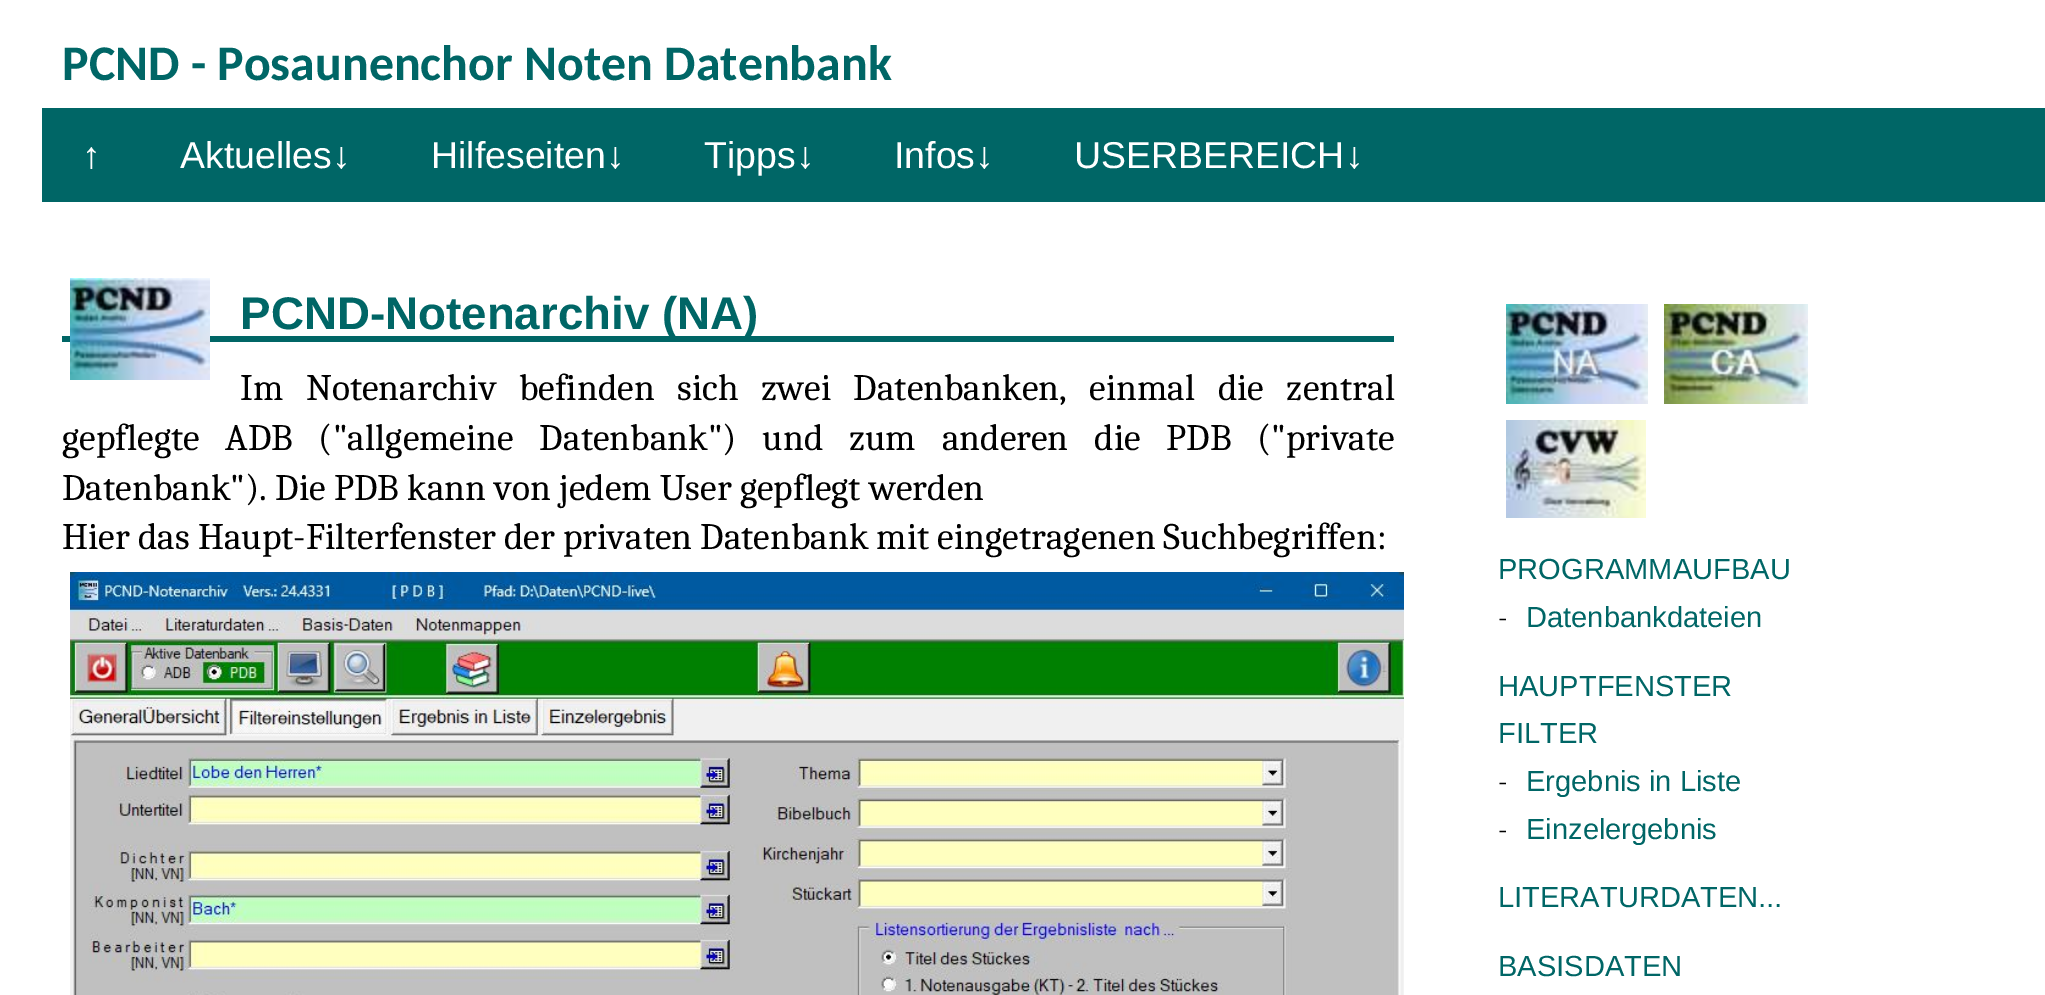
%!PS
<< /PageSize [2045 995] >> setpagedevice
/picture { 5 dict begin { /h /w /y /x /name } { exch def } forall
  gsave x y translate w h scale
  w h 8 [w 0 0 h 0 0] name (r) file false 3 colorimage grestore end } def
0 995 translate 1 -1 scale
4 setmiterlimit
1 setgray
0 0 2045 995 rectfill
/Carlito-Bold [49.9 0 0 -49.9 0 0] selectfont
0 0.4 0.4 setrgbcolor
62 80 moveto (PCND - Posaunenchor Noten Datenbank) show
42 108 2003 94 rectfill
/LiberationSans-Regular [37.45 0 0 -37.45 0 0] selectfont
1 setgray
82 168 moveto (↑) show
180 168 moveto (Aktuelles↓) show
431 168 moveto (Hilfeseiten↓) show
704 168 moveto (Tipps↓) show
894 168 moveto (Infos↓) show
1074 168 moveto (USERBEREICH↓) show
0 0.4 0.4 setrgbcolor
62 336 1332 6 rectfill
(img1.rgb) 70 278 140 102 picture
/LiberationSans-Bold [45.75 0 0 -45.75 0 0] selectfont
240 329 moveto (PCND-Notenarchiv \(NA\)) show
/Caladea-Regular [37.45 0 0 -37.45 0 0] selectfont
0 setgray
240 400 moveto 14.25 0 32 (Im Notenarchiv befinden sich zwei Datenbanken, einmal die zentral) widthshow
62 450 moveto 17.5 0 32 (gepflegte ADB \("allgemeine Datenbank"\) und zum anderen die PDB \("private) widthshow
62 500 moveto (Datenbank"\). Die PDB kann von jedem User gepflegt werden) show
62 549 moveto -0.25 0 32 (Hier das Haupt-Filterfenster der privaten Datenbank mit eingetragenen Suchbegriffen:) widthshow
(img2.rgb) 70 572 1334 423 picture
(img3.rgb) 1506 304 142 100 picture
(img4.rgb) 1664 304 144 100 picture
(img5.rgb) 1506 420 140 98 picture
/LiberationSans-Regular [29.1 0 0 -29.1 0 0] selectfont
0 0.4 0.4 setrgbcolor
1498 579 moveto (PROGRAMMAUFBAU) show
/Caladea-Regular [29.1 0 0 -29.1 0 0] selectfont
0 setgray
1498 627 moveto (-) show
/LiberationSans-Regular [29.1 0 0 -29.1 0 0] selectfont
0 0.4 0.4 setrgbcolor
1526 627 moveto (Datenbankdateien) show
1498 696 moveto (HAUPTFENSTER) show
1498 743 moveto (FILTER) show
/Caladea-Regular [29.1 0 0 -29.1 0 0] selectfont
0 setgray
1498 791 moveto (-) show
/LiberationSans-Regular [29.1 0 0 -29.1 0 0] selectfont
0 0.4 0.4 setrgbcolor
1526 791 moveto (Ergebnis in Liste) show
/Caladea-Regular [29.1 0 0 -29.1 0 0] selectfont
0 setgray
1498 839 moveto (-) show
/LiberationSans-Regular [29.1 0 0 -29.1 0 0] selectfont
0 0.4 0.4 setrgbcolor
1526 839 moveto (Einzelergebnis) show
1498 907 moveto (LITERATURDATEN...) show
1498 976 moveto (BASISDATEN) show
showpage
